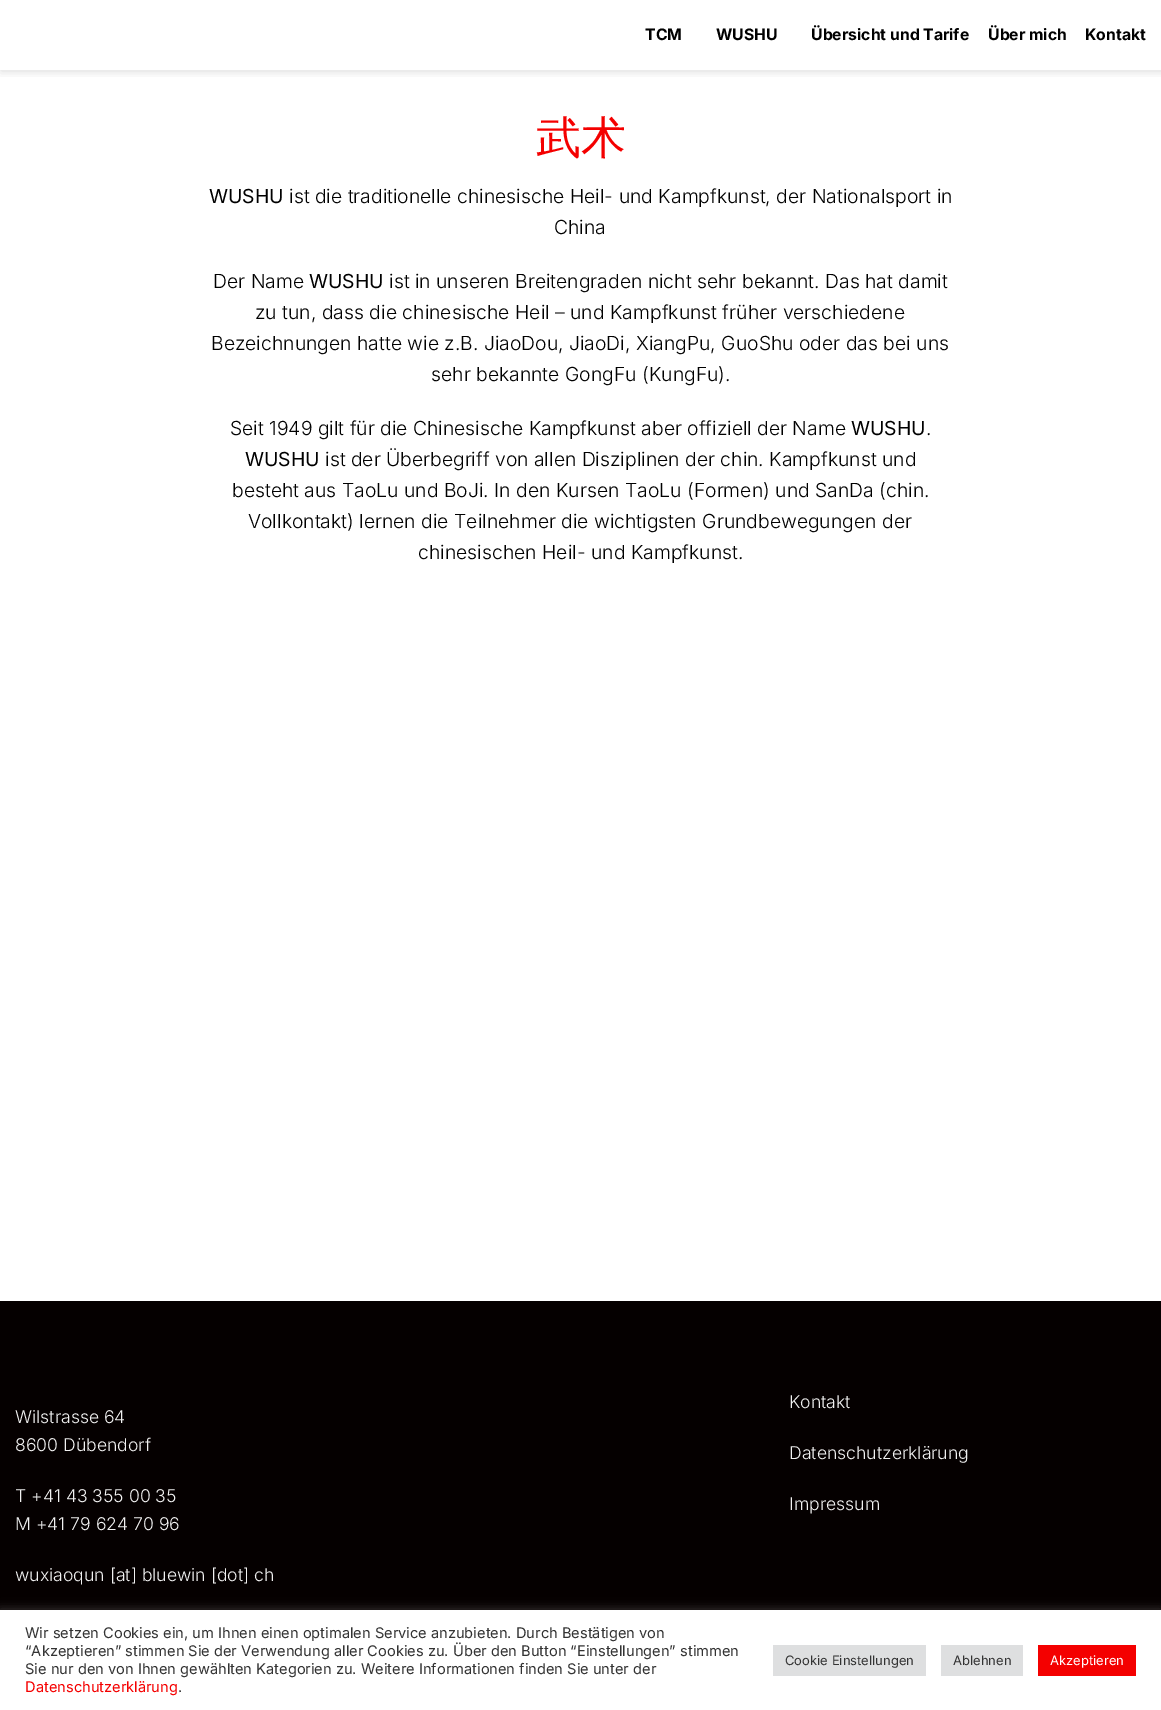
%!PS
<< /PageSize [1161 1710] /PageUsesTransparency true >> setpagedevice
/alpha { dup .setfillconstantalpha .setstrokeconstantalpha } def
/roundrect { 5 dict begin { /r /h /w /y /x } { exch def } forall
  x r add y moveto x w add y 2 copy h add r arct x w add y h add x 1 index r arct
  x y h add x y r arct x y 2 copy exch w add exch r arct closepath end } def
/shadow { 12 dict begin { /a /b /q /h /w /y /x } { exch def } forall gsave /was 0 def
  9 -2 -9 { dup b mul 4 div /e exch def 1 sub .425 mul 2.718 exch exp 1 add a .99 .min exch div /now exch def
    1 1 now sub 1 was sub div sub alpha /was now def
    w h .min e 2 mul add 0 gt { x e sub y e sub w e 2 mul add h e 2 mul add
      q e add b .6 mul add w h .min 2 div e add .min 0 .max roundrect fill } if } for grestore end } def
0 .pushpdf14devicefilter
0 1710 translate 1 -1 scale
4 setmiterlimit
1 setgray
0 0 1161 1710 rectfill
gsave
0 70 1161 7 rectclip
0 setgray
1 1 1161 70 0 5 0.15 shadow
grestore
/Inter-Bold [15.75 0 0 -15.75 0 0] selectfont
0 setgray
645 40 moveto (TCM) show
716 40 moveto (WUSHU) show
811 40 moveto (Übersicht und Tarife) show
988 40 moveto (Über mich) show
1085 40 moveto (Kontakt) show
/WenQuanYiZenHei-Medium [45 0 0 -45 0 0] selectfont
0.957 0 0 setrgbcolor
536 153 moveto (武术) show
/Inter-Regular [19.35 0 0 -19.35 0 0] selectfont
0 setgray
209 203 moveto (WUSHU) show
/Inter-Light [19.35 0 0 -19.35 0 0] selectfont
289 203 moveto (ist die traditionelle chinesische Heil- und Kampfkunst, der Nationalsport in) show
554 234 moveto (China) show
213 288 moveto (Der Name) show
/Inter-Regular [19.35 0 0 -19.35 0 0] selectfont
309 288 moveto (WUSHU) show
/Inter-Light [19.35 0 0 -19.35 0 0] selectfont
389 288 moveto (ist in unseren Breitengraden nicht sehr bekannt. Das hat damit) show
255 319 moveto (zu tun, dass die chinesische Heil – und Kampfkunst früher verschiedene) show
211 350 moveto (Bezeichnungen hatte wie z.B. JiaoDou, JiaoDi, XiangPu, GuoShu oder das bei uns) show
431 381 moveto (sehr bekannte GongFu \(KungFu\).) show
230 435 moveto (Seit 1949 gilt für die Chinesische Kampfkunst aber offiziell der Name) show
/Inter-Regular [19.35 0 0 -19.35 0 0] selectfont
851 435 moveto (WUSHU) show
/Inter-Light [19.35 0 0 -19.35 0 0] selectfont
926 435 moveto (.) show
/Inter-Regular [19.35 0 0 -19.35 0 0] selectfont
245 466 moveto (WUSHU) show
/Inter-Light [19.35 0 0 -19.35 0 0] selectfont
325 466 moveto (ist der Überbegriff von allen Disziplinen der chin. Kampfkunst und) show
232 497 moveto (besteht aus TaoLu und BoJi. In den Kursen TaoLu \(Formen\) und SanDa \(chin.) show
248 528 moveto (Vollkontakt\) lernen die Teilnehmer die wichtigsten Grundbewegungen der) show
418 559 moveto (chinesischen Heil- und Kampfkunst.) show
0.02 0 0 setrgbcolor
0 1301 1161 309 rectfill
/Inter-Light [17.6 0 0 -17.6 0 0] selectfont
0.945 setgray
15 1423 moveto (Wilstrasse 64) show
15 1451 moveto (8600 Dübendorf) show
15 1502 moveto (T +41 43 355 00 35) show
15 1530 moveto (M +41 79 624 70 96) show
15 1581 moveto (wuxiaoqun [at] bluewin [dot] ch) show
789 1408 moveto (Kontakt) show
789 1459 moveto (Datenschutzerklärung) show
789 1510 moveto (Impressum) show
0.675 0.671 0.671 setrgbcolor
0 1609 1161 100 0 5 0.3 shadow
1 setgray
0 1610 1161 100 rectfill
/Inter-Regular [14.65 0 0 -14.65 0 0] selectfont
0.2 setgray
25 1638 moveto (Wir setzen Cookies ein, um Ihnen einen optimalen Service anzubieten. Durch Bestätigen von) show
25 1656 moveto (“Akzeptieren” stimmen Sie der Verwendung aller Cookies zu. Über den Button “Einstellungen” stimmen) show
25 1674 moveto (Sie nur den von Ihnen gewählten Kategorien zu. Weitere Informationen finden Sie unter der) show
0.957 0 0 setrgbcolor
25 1692 moveto (Datenschutzerklärung) show
0.2 setgray
178 1692 moveto (.) show
0.871 0.875 0.878 setrgbcolor
773 1645 153 31 rectfill
/Inter-Regular [13 0 0 -13 0 0] selectfont
0.2 setgray
785 1665 moveto (Cookie Einstellungen) show
0.871 0.875 0.878 setrgbcolor
941 1645 82 31 rectfill
0.2 setgray
953 1665 moveto (Ablehnen) show
0.957 0 0 setrgbcolor
1038 1645 98 31 rectfill
1 setgray
1050 1665 moveto (Akzeptieren) show
.poppdf14devicefilter showpage
